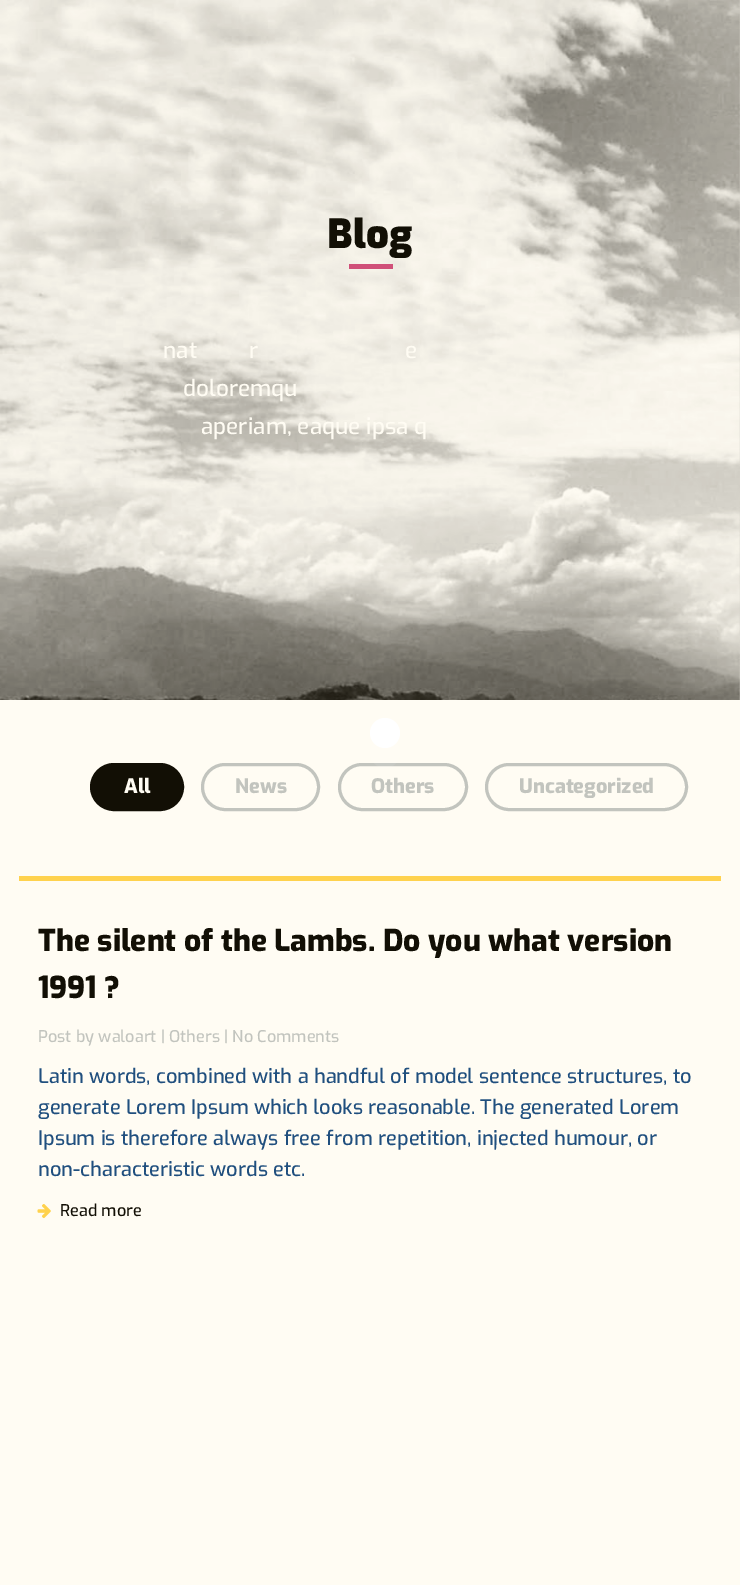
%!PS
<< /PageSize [740 1585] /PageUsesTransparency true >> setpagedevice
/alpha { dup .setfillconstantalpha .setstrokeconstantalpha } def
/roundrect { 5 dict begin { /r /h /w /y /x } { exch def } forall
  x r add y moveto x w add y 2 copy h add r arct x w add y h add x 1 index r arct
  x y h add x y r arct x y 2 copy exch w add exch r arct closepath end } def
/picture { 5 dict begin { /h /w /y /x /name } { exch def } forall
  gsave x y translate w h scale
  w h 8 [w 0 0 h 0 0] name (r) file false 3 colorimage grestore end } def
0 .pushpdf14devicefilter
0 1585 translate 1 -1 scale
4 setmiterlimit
1 0.988 0.953 setrgbcolor
0 0 740 1585 rectfill
(img1.rgb) 0 0 740 700 picture
/Exo-Black [40 0 0 -40 0 0] selectfont
0.071 0.059 0.02 setrgbcolor
327 248 moveto (Blog) show
0.816 0.314 0.475 setrgbcolor
349 264 44 5 rectfill
/Exo-Medium [22.5 0 0 -22.5 0 0] selectfont
1 0.988 0.953 setrgbcolor
163 358 moveto (nat) show
249 358 moveto (r) show
405 358 moveto (e) show
183 396 moveto (doloremqu) show
201 434 moveto (aperiam, eaque ipsa q) show
1 setgray
newpath 385 733 15 0 360 arc closepath fill
0.761 0.769 0.745 setrgbcolor
3 setlinewidth
339.5 764.5 127 45 22.5 roundrect stroke
0.07 alpha
1 setgray
newpath 385 753 15 0 360 arc closepath fill
1 alpha
0.071 0.059 0.02 setrgbcolor
91.5 764.5 91 45 22.5 roundrect gsave fill grestore
stroke
/Exo-ExtraBold [20 0 0 -20 0 0] selectfont
1 0.988 0.953 setrgbcolor
124 793 moveto (All) show
0.761 0.769 0.745 setrgbcolor
202.5 764.5 116 45 22.5 roundrect stroke
235 793 moveto (News) show
371 793 moveto (Others) show
486.5 764.5 200 45 22.5 roundrect stroke
519 793 moveto (Uncategorized) show
1 0.824 0.302 setrgbcolor
19 876 702 5 rectfill
/Exo-ExtraBold [30 0 0 -30 0 0] selectfont
0.071 0.059 0.02 setrgbcolor
38 951 moveto (The silent of the Lambs. Do you what version) show
38 998 moveto (1991 ?) show
/Exo-Medium [16.25 0 0 -16.25 0 0] selectfont
0.761 0.769 0.745 setrgbcolor
38 1042 moveto (Post by waloart | Others | No Comments) show
/Exo-Medium [20 0 0 -20 0 0] selectfont
0.125 0.31 0.494 setrgbcolor
38 1083 moveto (Latin words, combined with a handful of model sentence structures, to) show
38 1114 moveto (generate Lorem Ipsum which looks reasonable. The generated Lorem) show
38 1145 moveto (Ipsum is therefore always free from repetition, injected humour, or) show
38 1176 moveto (non-characteristic words etc.) show
(img2.rgb) 37 1204 14 15 picture
/Exo-Medium [16.25 0 0 -16.25 0 0] selectfont
0.071 0.059 0.02 setrgbcolor
60 1216 moveto (Read more) show
.poppdf14devicefilter showpage
